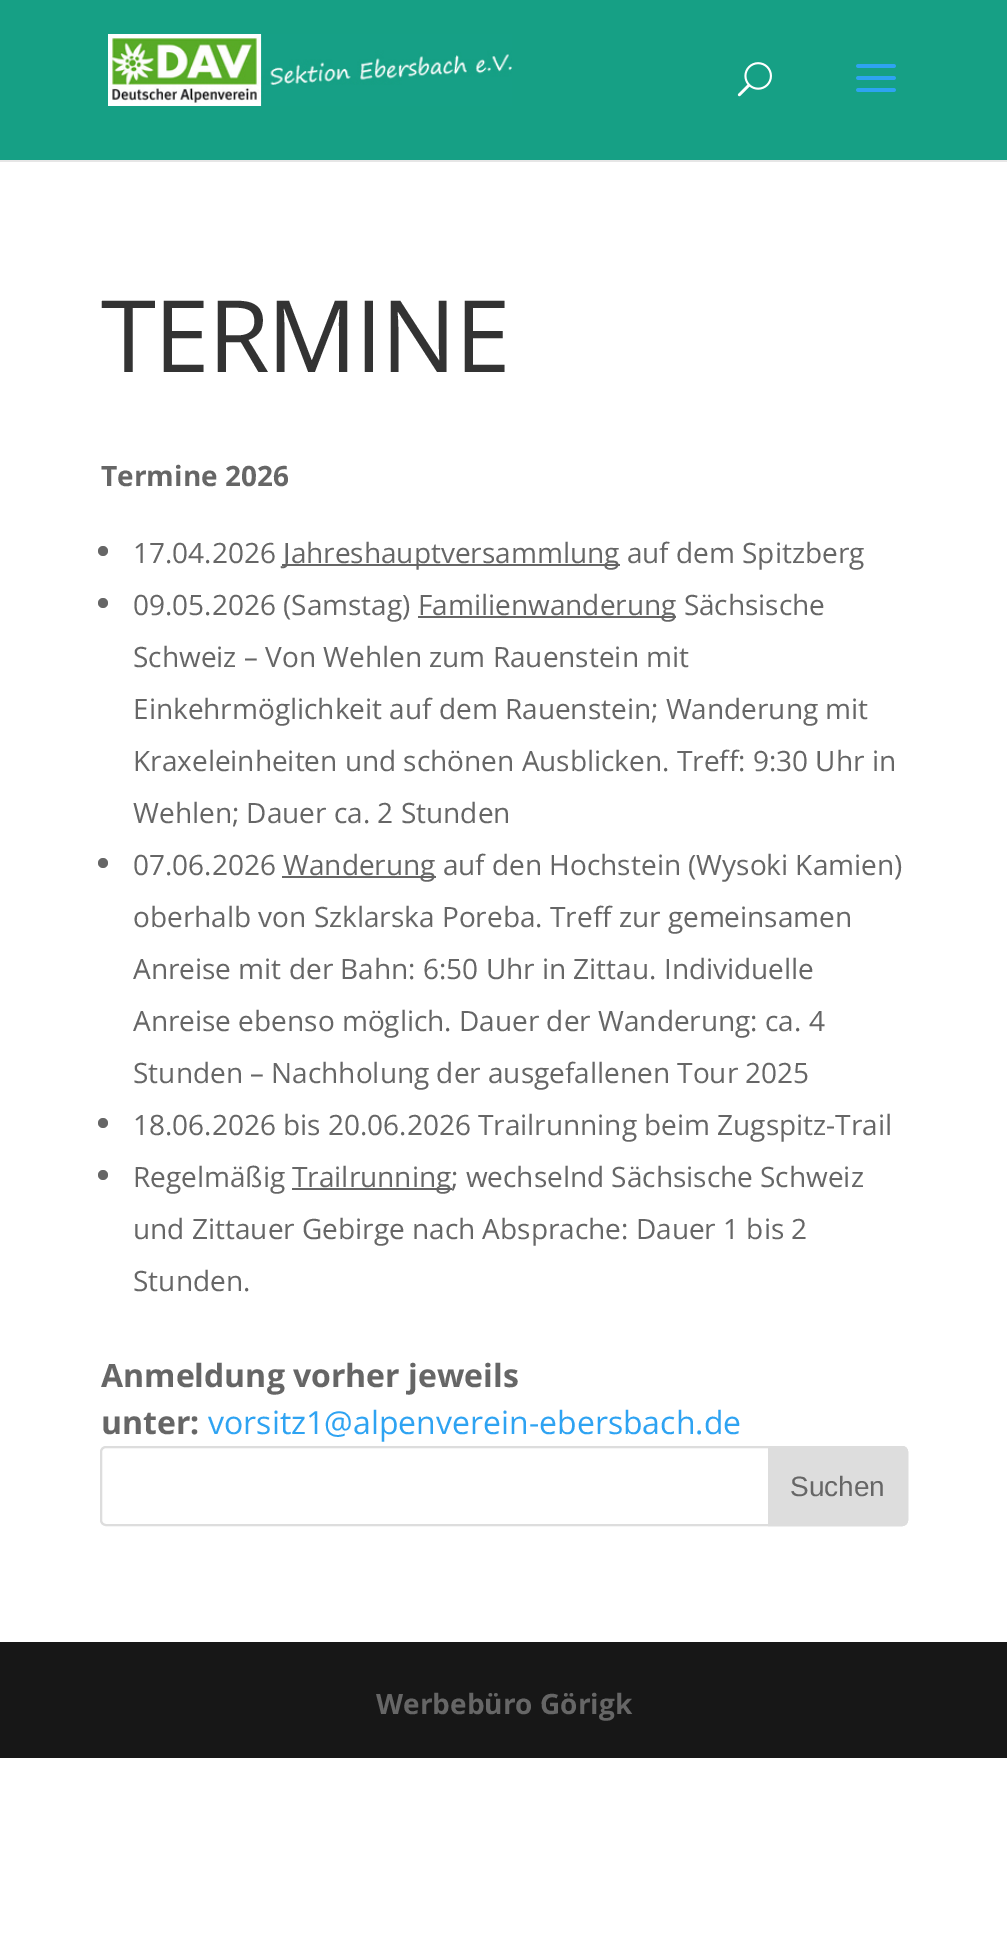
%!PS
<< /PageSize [1007 1945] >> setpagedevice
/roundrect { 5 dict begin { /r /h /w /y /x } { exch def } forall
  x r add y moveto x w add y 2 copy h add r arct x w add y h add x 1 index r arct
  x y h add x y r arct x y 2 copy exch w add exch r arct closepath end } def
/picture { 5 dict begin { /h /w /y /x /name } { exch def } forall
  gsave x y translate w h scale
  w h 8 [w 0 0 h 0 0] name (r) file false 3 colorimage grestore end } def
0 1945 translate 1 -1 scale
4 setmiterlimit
1 setgray
0 0 1007 1945 rectfill
0.902 setgray
0 160 1007 2 rectfill
0.086 0.627 0.522 setrgbcolor
0 0 1007 160 rectfill
(img1.rgb) 108 34 404 72 picture
(img2.rgb) 737 62 35 35 picture
(img3.rgb) 856 64 40 28 picture
/OpenSans-Regular [100 0 0 -100 0 0] selectfont
0.2 setgray
101 372 moveto -2 0 (TERMINE) ashow
/OpenSans-Bold [28 0 0 -28 0 0] selectfont
0.4 setgray
101 486 moveto (Termine 2026) show
newpath 103 551 5 0 360 arc closepath fill
/OpenSans-Regular [28 0 0 -28 0 0] selectfont
133 563 moveto (17.04.2026) show
282 564 338 2 rectfill
283 563 moveto (Jahreshauptversammlung auf dem Spitzberg) show
newpath 103 603 5 0 360 arc closepath fill
133 615 moveto (09.05.2026 \(Samstag\)) show
418 616 258 2 rectfill
418 615 moveto (Familienwanderung Sächsische) show
133 667 moveto (Schweiz – Von Wehlen zum Rauenstein mit) show
133 719 moveto (Einkehrmöglichkeit auf dem Rauenstein; Wanderung mit) show
133 771 moveto (Kraxeleinheiten und schönen Ausblicken. Treff: 9:30 Uhr in) show
133 823 moveto (Wehlen; Dauer ca. 2 Stunden) show
newpath 103 863 5 0 360 arc closepath fill
133 875 moveto (07.06.2026) show
282 876 154 2 rectfill
283 875 moveto (Wanderung auf den Hochstein \(Wysoki Kamien\)) show
133 927 moveto (oberhalb von Szklarska Poreba. Treff zur gemeinsamen) show
133 979 moveto (Anreise mit der Bahn: 6:50 Uhr in Zittau. Individuelle) show
133 1031 moveto (Anreise ebenso möglich. Dauer der Wanderung: ca. 4) show
133 1083 moveto (Stunden – Nachholung der ausgefallenen Tour 2025) show
newpath 103 1123 5 0 360 arc closepath fill
133 1135 moveto (18.06.2026 bis 20.06.2026 Trailrunning beim Zugspitz-Trail) show
newpath 103 1175 5 0 360 arc closepath fill
133 1187 moveto (Regelmäßig) show
292 1188 160 2 rectfill
292 1187 moveto (Trailrunning; wechselnd Sächsische Schweiz) show
133 1239 moveto (und Zittauer Gebirge nach Absprache: Dauer 1 bis 2) show
133 1291 moveto (Stunden.) show
/OpenSans-Bold [32 0 0 -32 0 0] selectfont
101 1387 moveto (Anmeldung vorher jeweils) show
101 1434 moveto (unter:) show
/OpenSans-Regular [32 0 0 -32 0 0] selectfont
0.18 0.639 0.949 setrgbcolor
208 1434 moveto (vorsitz1@alpenverein-ebersbach.de) show
0.867 setgray
2 setlinewidth
101 1447 806 78 5 roundrect stroke
newpath 769 1447 moveto 902 1447 lineto 905 1447 907 1449 907 1452 curveto 907 1520 lineto 907 1523 905 1525 902 1525 curveto 769 1525 lineto closepath gsave fill grestore
stroke
/LiberationSans-Regular [28 0 0 -28 0 0] selectfont
0.4 setgray
790 1496 moveto (Suchen) show
0.09 setgray
0 1642 1007 116 rectfill
/OpenSans-Bold [28 0 0 -28 0 0] selectfont
0.4 setgray
376 1714 moveto (Werbebüro Görigk) show
showpage
